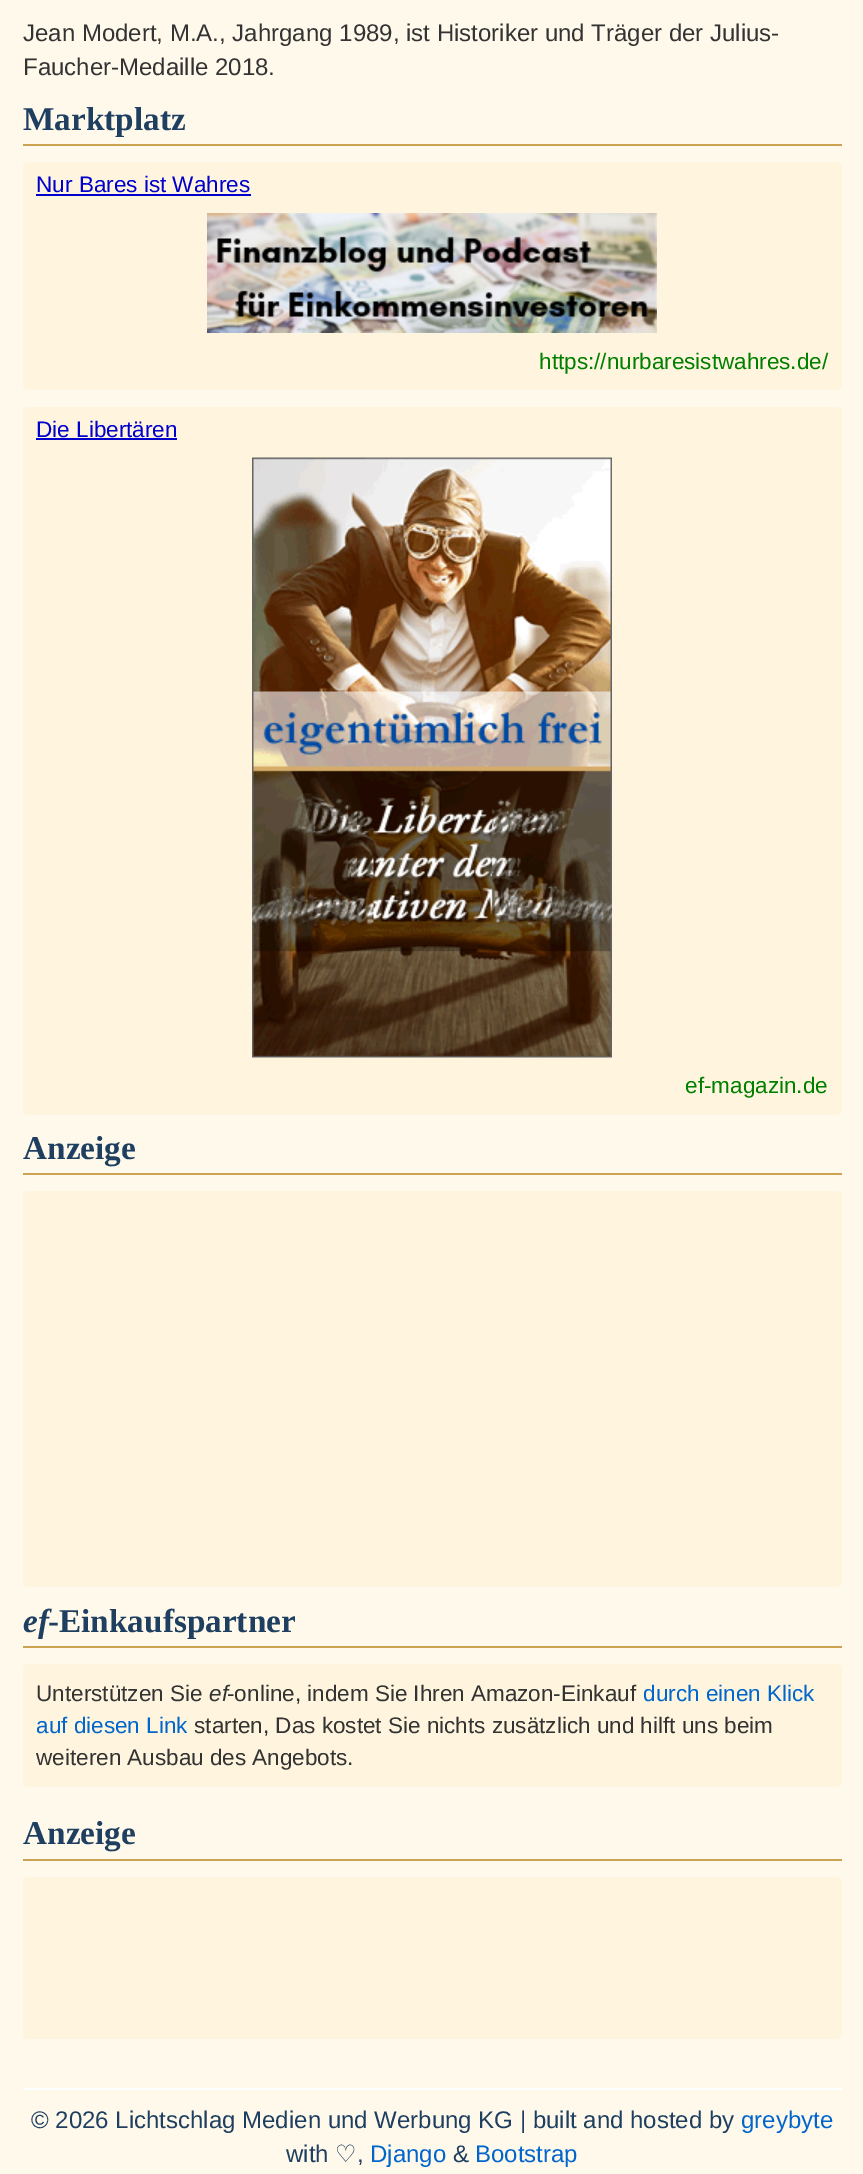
%!PS
<< /PageSize [863 2174] >> setpagedevice
/roundrect { 5 dict begin { /r /h /w /y /x } { exch def } forall
  x r add y moveto x w add y 2 copy h add r arct x w add y h add x 1 index r arct
  x y h add x y r arct x y 2 copy exch w add exch r arct closepath end } def
/picture { 5 dict begin { /h /w /y /x /name } { exch def } forall
  gsave x y translate w h scale
  w h 8 [w 0 0 h 0 0] name (r) file false 3 colorimage grestore end } def
0 2174 translate 1 -1 scale
4 setmiterlimit
1 0.976 0.925 setrgbcolor
0 0 863 2174 rectfill
/LiberationSans-Regular [24 0 0 -24 0 0] selectfont
0.2 setgray
23 41 moveto (Jean Modert, M.A., Jahrgang 1989, ist Historiker und Träger der Julius-) show
23 75 moveto (Faucher-Medaille 2018.) show
0.8 0.639 0.322 setrgbcolor
23 144 819 2 rectfill
/LiberationSerif-Bold [33.25 0 0 -33.25 0 0] selectfont
0.118 0.247 0.376 setrgbcolor
23 130 moveto (Marktplatz) show
1 0.957 0.867 setrgbcolor
23 162 819 228 5 roundrect fill
/LiberationSans-Regular [22.5 0 0 -22.5 0 0] selectfont
0 0 0.8 setrgbcolor
36 192 moveto (Nur Bares ist Wahres) show
36 194 215 2 rectfill
(img1.rgb) 207 213 450 120 picture
0 0.502 0 setrgbcolor
539 369 moveto (https://nurbaresistwahres.de/) show
1 0.957 0.867 setrgbcolor
23 407 819 708 5 roundrect fill
0 0 0.8 setrgbcolor
36 437 moveto (Die Libertären) show
36 438 141 2 rectfill
(img2.rgb) 252 457 360 601 picture
0 0.502 0 setrgbcolor
685 1093 moveto (ef-magazin.de) show
0.8 0.639 0.322 setrgbcolor
23 1173 819 2 rectfill
/LiberationSerif-Bold [33.25 0 0 -33.25 0 0] selectfont
0.118 0.247 0.376 setrgbcolor
23 1159 moveto (Anzeige) show
1 0.957 0.867 setrgbcolor
23 1191 819 396 5 roundrect fill
0.8 0.639 0.322 setrgbcolor
23 1646 819 2 rectfill
/LiberationSerif-BoldItalic [33.25 0 0 -33.25 0 0] selectfont
0.118 0.247 0.376 setrgbcolor
23 1632 moveto (ef) show
/LiberationSerif-Bold [33.25 0 0 -33.25 0 0] selectfont
48 1632 moveto (-Einkaufspartner) show
1 0.957 0.867 setrgbcolor
23 1664 819 123 5 roundrect fill
/LiberationSans-Regular [22.5 0 0 -22.5 0 0] selectfont
0.2 setgray
36 1701 moveto (Unterstützen Sie) show
/LiberationSans-Italic [22.5 0 0 -22.5 0 0] selectfont
209 1701 moveto (ef) show
/LiberationSans-Regular [22.5 0 0 -22.5 0 0] selectfont
227 1701 moveto (-online, indem Sie Ihren Amazon-Einkauf) show
0 0.4 0.8 setrgbcolor
643 1701 moveto (durch einen Klick) show
36 1733 moveto (auf diesen Link) show
0.2 setgray
194 1733 moveto (starten, Das kostet Sie nichts zusätzlich und hilft uns beim) show
36 1765 moveto (weiteren Ausbau des Angebots.) show
0.8 0.639 0.322 setrgbcolor
23 1859 819 2 rectfill
/LiberationSerif-Bold [33.25 0 0 -33.25 0 0] selectfont
0.118 0.247 0.376 setrgbcolor
23 1844 moveto (Anzeige) show
1 0.957 0.867 setrgbcolor
23 1877 819 162 5 roundrect fill
0.992 0.996 1 setrgbcolor
23 2088 819 2 rectfill
/LiberationSans-Regular [24 0 0 -24 0 0] selectfont
0.118 0.247 0.376 setrgbcolor
31 2128 moveto (© 2026 Lichtschlag Medien und Werbung KG | built and hosted by) show
0 0.4 0.8 setrgbcolor
741 2128 moveto (greybyte) show
0.118 0.247 0.376 setrgbcolor
286 2162 moveto (with) show
/DejaVuSans-Regular [24 0 0 -24 0 0] selectfont
335 2162 moveto (♡) show
/LiberationSans-Regular [24 0 0 -24 0 0] selectfont
357 2162 moveto (,) show
0 0.4 0.8 setrgbcolor
370 2162 moveto (Django) show
0.118 0.247 0.376 setrgbcolor
453 2162 moveto (&) show
0 0.4 0.8 setrgbcolor
475 2162 moveto (Bootstrap) show
showpage
